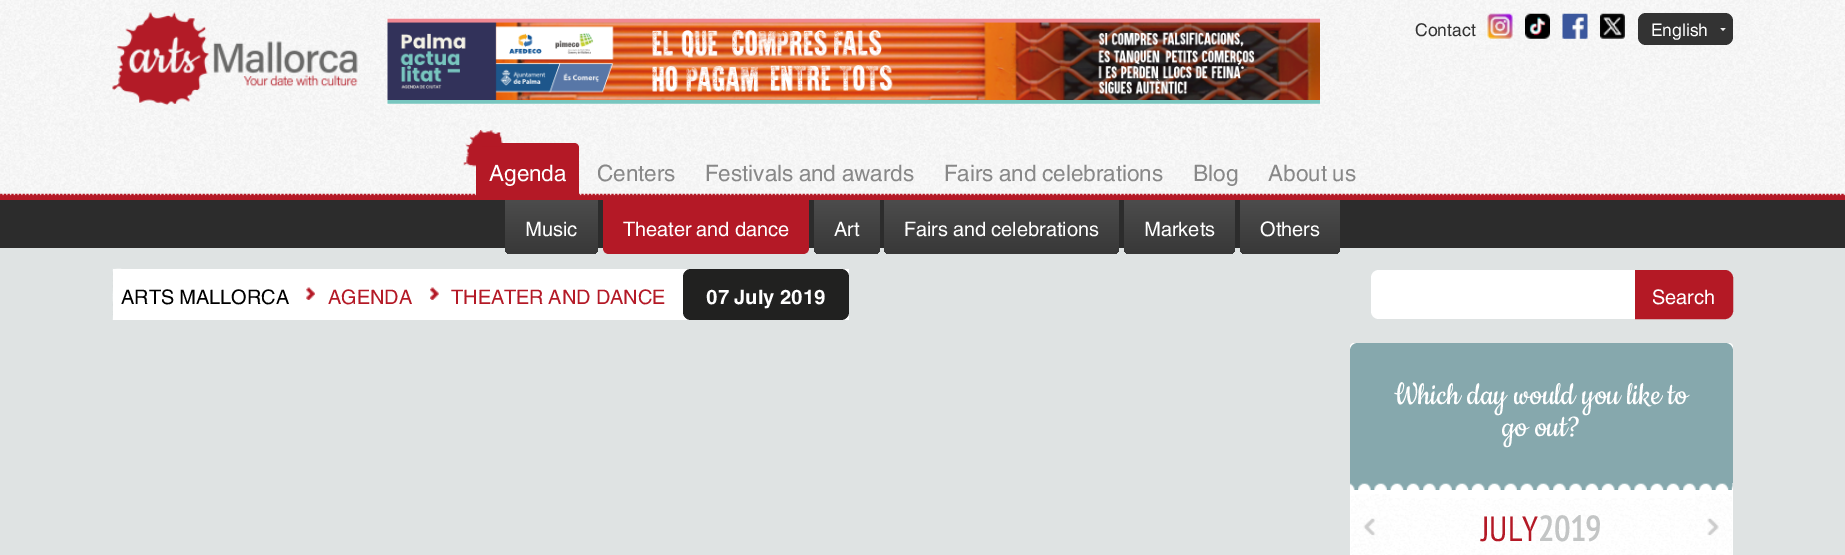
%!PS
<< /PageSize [1845 555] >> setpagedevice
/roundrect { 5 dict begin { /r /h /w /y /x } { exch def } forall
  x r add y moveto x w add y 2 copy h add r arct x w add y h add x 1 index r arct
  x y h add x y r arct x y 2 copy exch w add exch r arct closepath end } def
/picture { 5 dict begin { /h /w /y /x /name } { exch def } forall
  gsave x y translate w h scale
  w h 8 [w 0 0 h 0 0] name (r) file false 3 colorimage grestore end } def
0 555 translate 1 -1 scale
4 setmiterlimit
0.173 setgray
0 0 1845 555 rectfill
(img1.rgb) 0 0 1845 196 picture
(img2.rgb) 112 12 246 93 picture
(img3.rgb) 387 18 933 86 picture
/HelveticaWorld-Regular [17.5 0 0 -17.5 0 0] selectfont
0.2 setgray
1415 36 moveto (Contact) show
(img4.rgb) 1487 13 26 26 picture
(img5.rgb) 1525 13 25 26 picture
(img6.rgb) 1562 13 26 26 picture
(img7.rgb) 1600 13 25 26 picture
1638 13 95 32 8 roundrect fill
gsave
1720 28 6 4 rectclip
0.933 setgray
newpath 1723 31 moveto 1720 27.5 lineto 1726 27.5 lineto closepath fill
grestore
1 setgray
1651 36 moveto (English) show
(img8.rgb) 0 193 1845 7 picture
0.706 0.098 0.149 setrgbcolor
newpath 481 143 moveto 574 143 lineto 577 143 579 145 579 148 curveto 579 200 lineto 476 200 lineto 476 148 lineto 476 145 478 143 481 143 curveto closepath fill
/HelveticaWorld-Regular [22.5 0 0 -22.5 0 0] selectfont
1 setgray
489 181 moveto (Agenda) show
(img9.rgb) 463 130 40 37 picture
0.533 setgray
597 181 moveto (Centers) show
705 181 moveto (Festivals and awards) show
944 181 moveto (Fairs and celebrations) show
1193 181 moveto (Blog) show
1268 181 moveto (About us) show
0.875 0.89 0.89 setrgbcolor
0 248 1845 307 rectfill
gsave newpath 505 200 moveto 598 200 lineto 598 248 lineto 598 251.5 595.5 254 592 254 curveto 511 254 lineto 507.5 254 505 251.5 505 248 curveto closepath clip newpath
<< /ShadingType 2 /ColorSpace /DeviceRGB /Coords [551 200 551 254] /Extend [true true] /Function << /FunctionType 2 /Domain [0 1] /C0 [0.298 0.298 0.298] /C1 [0.22 0.22 0.22] /N 1 >> >> shfill grestore
/HelveticaWorld-Regular [20 0 0 -20 0 0] selectfont
1 setgray
525 236 moveto (Music) show
0.706 0.098 0.149 setrgbcolor
newpath 603 200 moveto 809 200 lineto 809 248 lineto 809 251.5 806.5 254 803 254 curveto 609 254 lineto 605.5 254 603 251.5 603 248 curveto closepath fill
1 setgray
623 236 moveto (Theater and dance) show
gsave newpath 814 200 moveto 880 200 lineto 880 248 lineto 880 251.5 877.5 254 874 254 curveto 820 254 lineto 816.5 254 814 251.5 814 248 curveto closepath clip newpath
<< /ShadingType 2 /ColorSpace /DeviceRGB /Coords [847 200 847 254] /Extend [true true] /Function << /FunctionType 2 /Domain [0 1] /C0 [0.298 0.298 0.298] /C1 [0.22 0.22 0.22] /N 1 >> >> shfill grestore
834 236 moveto (Art) show
gsave newpath 884 200 moveto 1119 200 lineto 1119 248 lineto 1119 251.5 1116.5 254 1113 254 curveto 890 254 lineto 886.5 254 884 251.5 884 248 curveto closepath clip newpath
<< /ShadingType 2 /ColorSpace /DeviceRGB /Coords [1001 200 1001 254] /Extend [true true] /Function << /FunctionType 2 /Domain [0 1] /C0 [0.298 0.298 0.298] /C1 [0.22 0.22 0.22] /N 1 >> >> shfill grestore
904 236 moveto (Fairs and celebrations) show
gsave newpath 1124 200 moveto 1235 200 lineto 1235 248 lineto 1235 251.5 1232.5 254 1229 254 curveto 1130 254 lineto 1126.5 254 1124 251.5 1124 248 curveto closepath clip newpath
<< /ShadingType 2 /ColorSpace /DeviceRGB /Coords [1179 200 1179 254] /Extend [true true] /Function << /FunctionType 2 /Domain [0 1] /C0 [0.298 0.298 0.298] /C1 [0.22 0.22 0.22] /N 1 >> >> shfill grestore
1144 236 moveto (Markets) show
gsave newpath 1240 200 moveto 1340 200 lineto 1340 248 lineto 1340 251.5 1337.5 254 1334 254 curveto 1246 254 lineto 1242.5 254 1240 251.5 1240 248 curveto closepath clip newpath
<< /ShadingType 2 /ColorSpace /DeviceRGB /Coords [1290 200 1290 254] /Extend [true true] /Function << /FunctionType 2 /Domain [0 1] /C0 [0.298 0.298 0.298] /C1 [0.22 0.22 0.22] /N 1 >> >> shfill grestore
1260 236 moveto (Others) show
(img10.rgb) 112 268 10 52 picture
113 269 736 51 rectfill
0 setgray
121 304 moveto (ARTS MALLORCA) show
(img11.rgb) 306 287 9 13 picture
0.706 0.098 0.149 setrgbcolor
328 304 moveto (AGENDA) show
(img12.rgb) 430 287 9 13 picture
451 304 moveto (THEATER AND DANCE) show
0.129 0.129 0.125 setrgbcolor
683 269 166 51 8 roundrect fill
/HelveticaWorld-Bold [20 0 0 -20 0 0] selectfont
1 setgray
706 304 moveto (07 July 2019) show
newpath 1379 270 moveto 1635 270 lineto 1635 319 lineto 1379 319 lineto 1374.5 319 1371 315.5 1371 311 curveto 1371 278 lineto 1371 273.5 1374.5 270 1379 270 curveto closepath fill
0.706 0.098 0.145 setrgbcolor
newpath 1636.5 271.5 moveto 1725 271.5 lineto 1728.5 271.5 1731.5 274.5 1731.5 278 curveto 1731.5 311 lineto 1731.5 314.5 1728.5 317.5 1725 317.5 curveto 1636.5 317.5 lineto closepath gsave fill grestore
3 setlinewidth
stroke
/HelveticaWorld-Regular [20 0 0 -20 0 0] selectfont
1 setgray
1652 304 moveto (Search) show
1350 343 383 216 4 roundrect fill
0.525 0.659 0.678 setrgbcolor
newpath 1358 343 moveto 1725 343 lineto 1729.5 343 1733 346.5 1733 351 curveto 1733 483 lineto 1350 483 lineto 1350 351 lineto 1350 346.5 1353.5 343 1358 343 curveto closepath fill
/Cookie-Regular [35 0 0 -35 0 0] selectfont
1 setgray
1394 404 moveto (Which day would you like to) show
1502 436 moveto (go out?) show
(img13.rgb) 1350 483 383 7 picture
(img14.rgb) 1352 498 343 57 picture
(img15.rgb) 1351 494 39 60 picture
/PTSansNarrow-Regular [35 0 0 -35 0 0] selectfont
0.706 0.098 0.149 setrgbcolor
1481 541 moveto (JULY) show
/PTSansNarrow-Bold [35 0 0 -35 0 0] selectfont
0.765 0.773 0.773 setrgbcolor
1538 541 moveto (2019) show
(img16.rgb) 1695 494 37 61 picture
showpage
